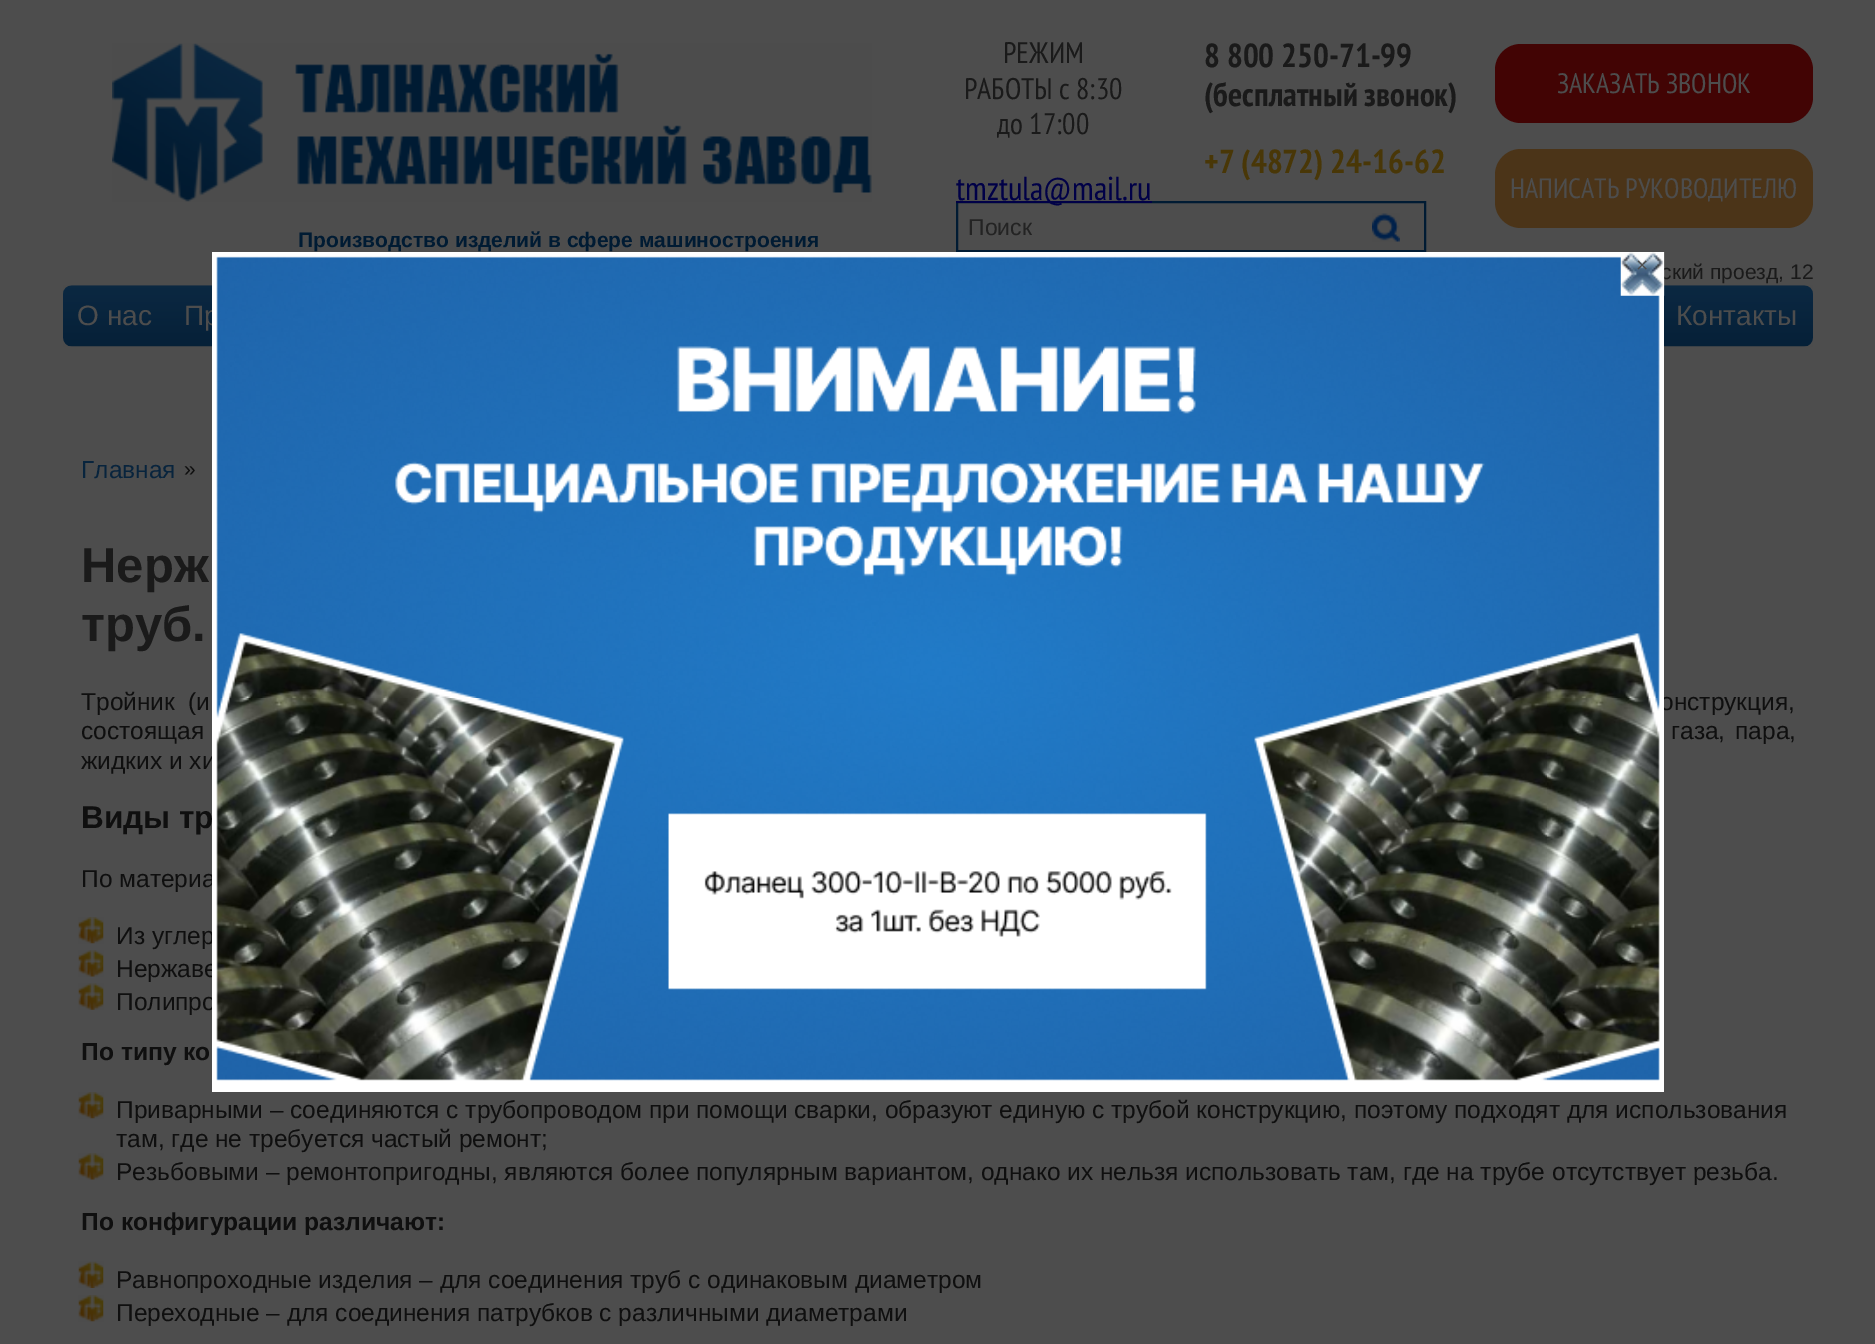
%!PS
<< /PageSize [1875 1344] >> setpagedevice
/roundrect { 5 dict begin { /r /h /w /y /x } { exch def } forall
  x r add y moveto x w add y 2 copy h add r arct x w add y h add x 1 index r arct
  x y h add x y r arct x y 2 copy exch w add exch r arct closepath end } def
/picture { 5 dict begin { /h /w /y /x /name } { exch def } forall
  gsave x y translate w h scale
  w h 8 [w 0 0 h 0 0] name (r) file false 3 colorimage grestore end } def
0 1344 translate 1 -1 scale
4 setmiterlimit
0.302 setgray
0 0 1875 1344 rectfill
(img1.rgb) 112 43 760 159 picture
/PTSansNarrow-Regular [29.75 0 0 -29.75 0 0] selectfont
0.102 setgray
1003 63 moveto (РЕЖИМ) show
964 99 moveto (РАБОТЫ с 8:30) show
997 134 moveto (до 17:00) show
0 0.106 0.2 setrgbcolor
2 setlinewidth
957 202 468 49 rectstroke
0 0 0.278 setrgbcolor
956 201 196 2 rectfill
/PTSansNarrow-Regular [33.25 0 0 -33.25 0 0] selectfont
956 200 moveto (tmztula@mail.ru) show
/PTSansNarrow-Bold [33.25 0 0 -33.25 0 0] selectfont
0.102 setgray
1204 67 moveto (8 800 250-71-99) show
1204 106 moveto (\(бесплатный звонок\)) show
0.286 0.216 0.027 setrgbcolor
1204 173 moveto (+7 \(4872\) 24-16-62) show
0.259 0.016 0.016 setrgbcolor
1495 44 318 79 26 roundrect fill
/PTSansNarrow-Regular [28 0 0 -28 0 0] selectfont
0.302 setgray
1557 93 moveto (ЗАКАЗАТЬ ЗВОНОК) show
0.294 0.204 0.094 setrgbcolor
1495 149 318 79 26 roundrect fill
0.302 setgray
1510 198 moveto (НАПИСАТЬ РУКОВОДИТЕЛЮ) show
/LiberationSans-Regular [23 0 0 -23 0 0] selectfont
0.137 setgray
968 235 moveto (Поиск) show
(img2.rgb) 1372 213 28 29 picture
/LiberationSans-Bold [21 0 0 -21 0 0] selectfont
0 0.106 0.2 setrgbcolor
298 247 moveto (Производство изделий в сфере машиностроения) show
/LiberationSans-Regular [21 0 0 -21 0 0] selectfont
0.102 setgray
1661 279 moveto (ский проезд, 12) show
(img3.rgb) 63 285 1750 62 picture
/LiberationSans-Regular [28 0 0 -28 0 0] selectfont
0.302 setgray
77 325 moveto (О нас) show
184 325 moveto (Пр) show
1676 325 moveto (Контакты) show
/LiberationSans-Regular [24.5 0 0 -24.5 0 0] selectfont
0.031 0.141 0.239 setrgbcolor
81 478 moveto (Главная) show
/LiberationSans-Regular [21 0 0 -21 0 0] selectfont
0.059 setgray
184 476 moveto (») show
/LiberationSans-Bold [49 0 0 -49 0 0] selectfont
0.102 setgray
81 582 moveto (Нерж) show
81 641 moveto (труб.) show
/LiberationSans-Regular [24.5 0 0 -24.5 0 0] selectfont
0.059 setgray
81 710 moveto 6 0 32 (Тройник \(и) widthshow
1660 710 moveto 6 0 32 (онструкция,) widthshow
81 739 moveto 3 0 32 (состоящая) widthshow
1671 739 moveto 3 0 32 (газа, пара,) widthshow
81 769 moveto (жидких и хи) show
/LiberationSans-Bold [31.5 0 0 -31.5 0 0] selectfont
81 828 moveto (Виды тр) show
/LiberationSans-Regular [24.5 0 0 -24.5 0 0] selectfont
81 887 moveto (По материа) show
(img4.rgb) 78 917 26 27 picture
116 944 moveto (Из углер) show
(img5.rgb) 78 950 26 27 picture
116 977 moveto (Нержаве) show
(img6.rgb) 78 983 26 27 picture
116 1010 moveto (Полипро) show
/LiberationSans-Bold [24.6 0 0 -24.6 0 0] selectfont
81 1060 moveto (По типу ко) show
(img4.rgb) 78 1092 26 27 picture
/LiberationSans-Regular [24.5 0 0 -24.5 0 0] selectfont
116 1118 moveto (Приварными – соединяются с трубопроводом при помощи сварки, образуют единую с трубой конструкцию, поэтому подходят для использования) show
116 1147 moveto (там, где не требуется частый ремонт;) show
(img5.rgb) 78 1153 26 27 picture
116 1180 moveto (Резьбовыми – ремонтопригодны, являются более популярным вариантом, однако их нельзя использовать там, где на трубе отсутствует резьба.) show
/LiberationSans-Bold [24.6 0 0 -24.6 0 0] selectfont
81 1230 moveto (По конфигурации различают:) show
(img7.rgb) 78 1261 26 27 picture
/LiberationSans-Regular [24.5 0 0 -24.5 0 0] selectfont
116 1288 moveto (Равнопроходные изделия – для соединения труб с одинаковым диаметром) show
(img4.rgb) 78 1295 26 27 picture
116 1321 moveto (Переходные – для соединения патрубков с различными диаметрами) show
1 setgray
212 252 1452 840 rectfill
(img8.rgb) 216 256 1444 825 picture
(img9.rgb) 1620 252 45 44 picture
/LiberationSans-Regular [21 0 0 -21 0 0] selectfont
0.302 setgray
1636 272 moveto (×) show
showpage
